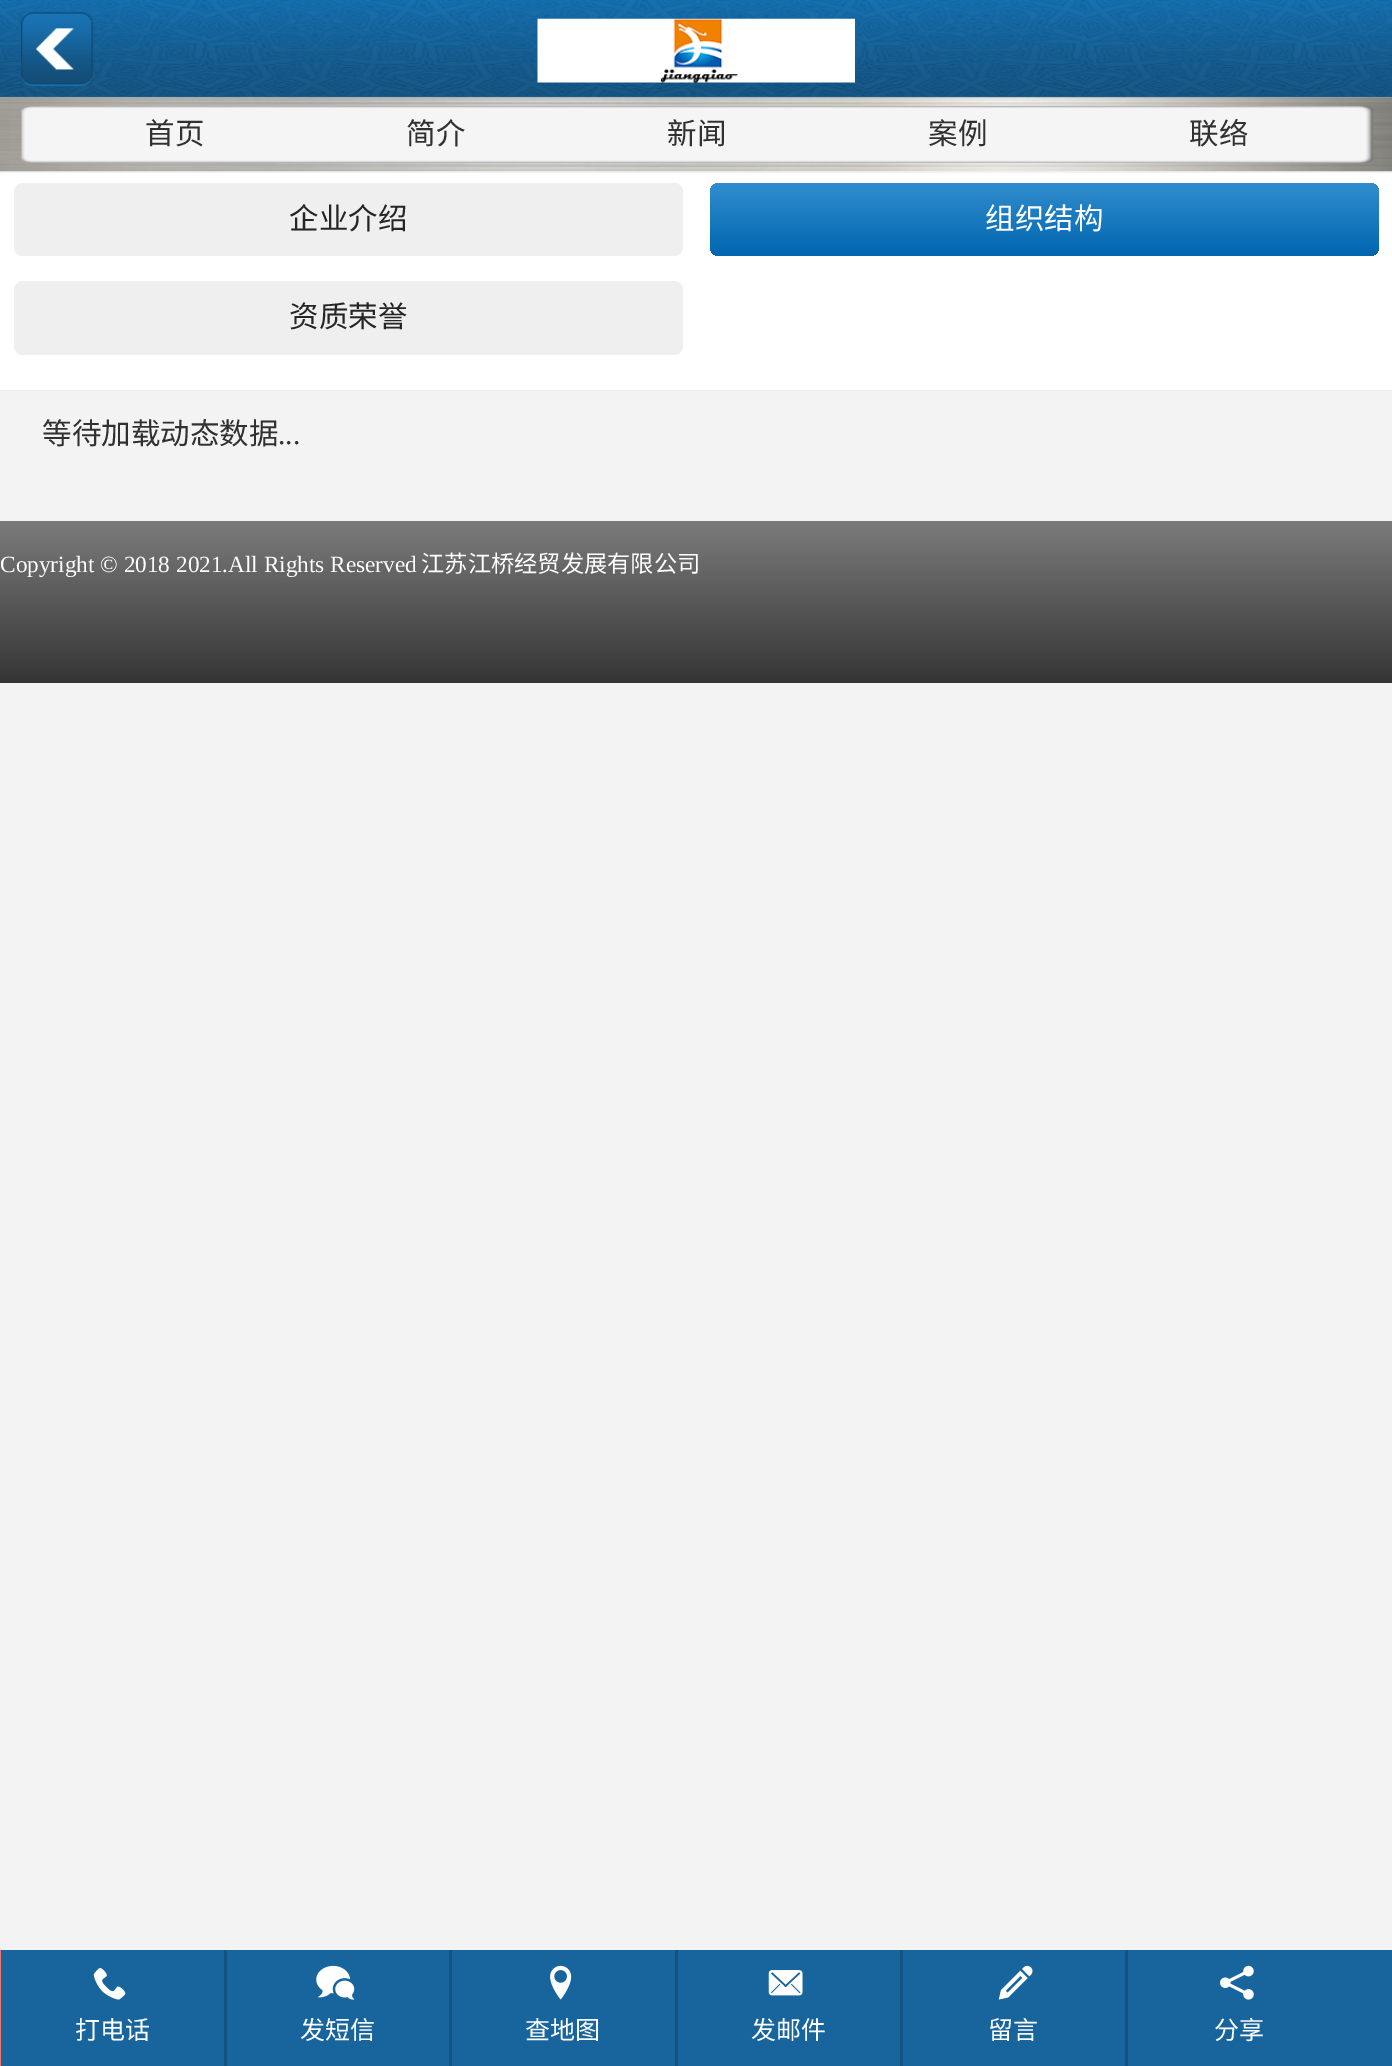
%!PS
<< /PageSize [1392 2066] >> setpagedevice
/roundrect { 5 dict begin { /r /h /w /y /x } { exch def } forall
  x r add y moveto x w add y 2 copy h add r arct x w add y h add x 1 index r arct
  x y h add x y r arct x y 2 copy exch w add exch r arct closepath end } def
/picture { 5 dict begin { /h /w /y /x /name } { exch def } forall
  gsave x y translate w h scale
  w h 8 [w 0 0 h 0 0] name (r) file false 3 colorimage grestore end } def
0 2066 translate 1 -1 scale
4 setmiterlimit
0.953 setgray
0 0 1392 2066 rectfill
(img1.rgb) 0 0 1392 98 picture
(img2.rgb) 537 18 318 65 picture
(img3.rgb) 21 12 72 75 picture
(img4.rgb) 0 97 1392 75 picture
/NotoSansCJKSC-Regular [29.5 0 0 -29.5 0 0] selectfont
0.192 setgray
145 144 moveto (首页) show
406 144 moveto (简介) show
667 144 moveto (新闻) show
928 144 moveto (案例) show
1189 144 moveto (联络) show
1 setgray
0 173 1392 217 rectfill
0.925 setgray
0 390 1392 1 rectfill
0.937 setgray
14 183 669 73 9 roundrect fill
0.145 setgray
289 229 moveto (企业介绍) show
gsave 710 183 669 73 9 roundrect clip newpath
<< /ShadingType 2 /ColorSpace /DeviceRGB /Coords [1044 256 1044 183] /Extend [true true] /Function << /FunctionType 2 /Domain [0 1] /C0 [0 0.4 0.686] /C1 [0.192 0.553 0.804] /N 1 >> >> shfill grestore
1 setgray
985 229 moveto (组织结构) show
0.937 setgray
14 281 669 74 9 roundrect fill
0.145 setgray
289 327 moveto (资质荣誉) show
0.192 setgray
42 444 moveto (等待加载动态数据) show
/LiberationSerif-Regular [29.5 0 0 -29.5 0 0] selectfont
278 444 moveto (...) show
gsave newpath 0 521 moveto 1392 521 lineto 1392 683 lineto 0 683 lineto closepath clip newpath
<< /ShadingType 2 /ColorSpace /DeviceRGB /Coords [696 683 696 521] /Extend [true true] /Function << /FunctionType 2 /Domain [0 1] /C0 [0.208 0.208 0.208] /C1 [0.482 0.482 0.482] /N 1 >> >> shfill grestore
/LiberationSerif-Regular [23.25 0 0 -23.25 0 0] selectfont
1 setgray
0 572 moveto (Copyright © 2018 2021.All Rights Reserved) show
/NotoSansCJKSC-Regular [23.25 0 0 -23.25 0 0] selectfont
421 572 moveto (江苏江桥经贸发展有限公司) show
0.09 0.396 0.612 setrgbcolor
1 1950 1391 116 rectfill
0.933 0.459 0.416 setrgbcolor
0 1950 1 116 rectfill
(img5.rgb) 93 1968 33 32 picture
/NotoSansCJKSC-Regular [25 0 0 -25 0 0] selectfont
1 setgray
75 2039 moveto (打电话) show
0.071 0.325 0.506 setrgbcolor
224 1950 3 116 rectfill
(img6.rgb) 316 1965 39 35 picture
1 setgray
300 2039 moveto (发短信) show
0.071 0.325 0.506 setrgbcolor
449 1950 3 116 rectfill
(img7.rgb) 550 1965 22 35 picture
1 setgray
525 2039 moveto (查地图) show
0.071 0.325 0.506 setrgbcolor
675 1950 3 116 rectfill
(img8.rgb) 768 1970 35 26 picture
1 setgray
751 2039 moveto (发邮件) show
0.071 0.325 0.506 setrgbcolor
900 1950 3 116 rectfill
(img9.rgb) 998 1965 35 35 picture
1 setgray
988 2039 moveto (留言) show
0.071 0.325 0.506 setrgbcolor
1125 1950 3 116 rectfill
(img10.rgb) 1220 1965 34 35 picture
1 setgray
1214 2039 moveto (分享) show
showpage
